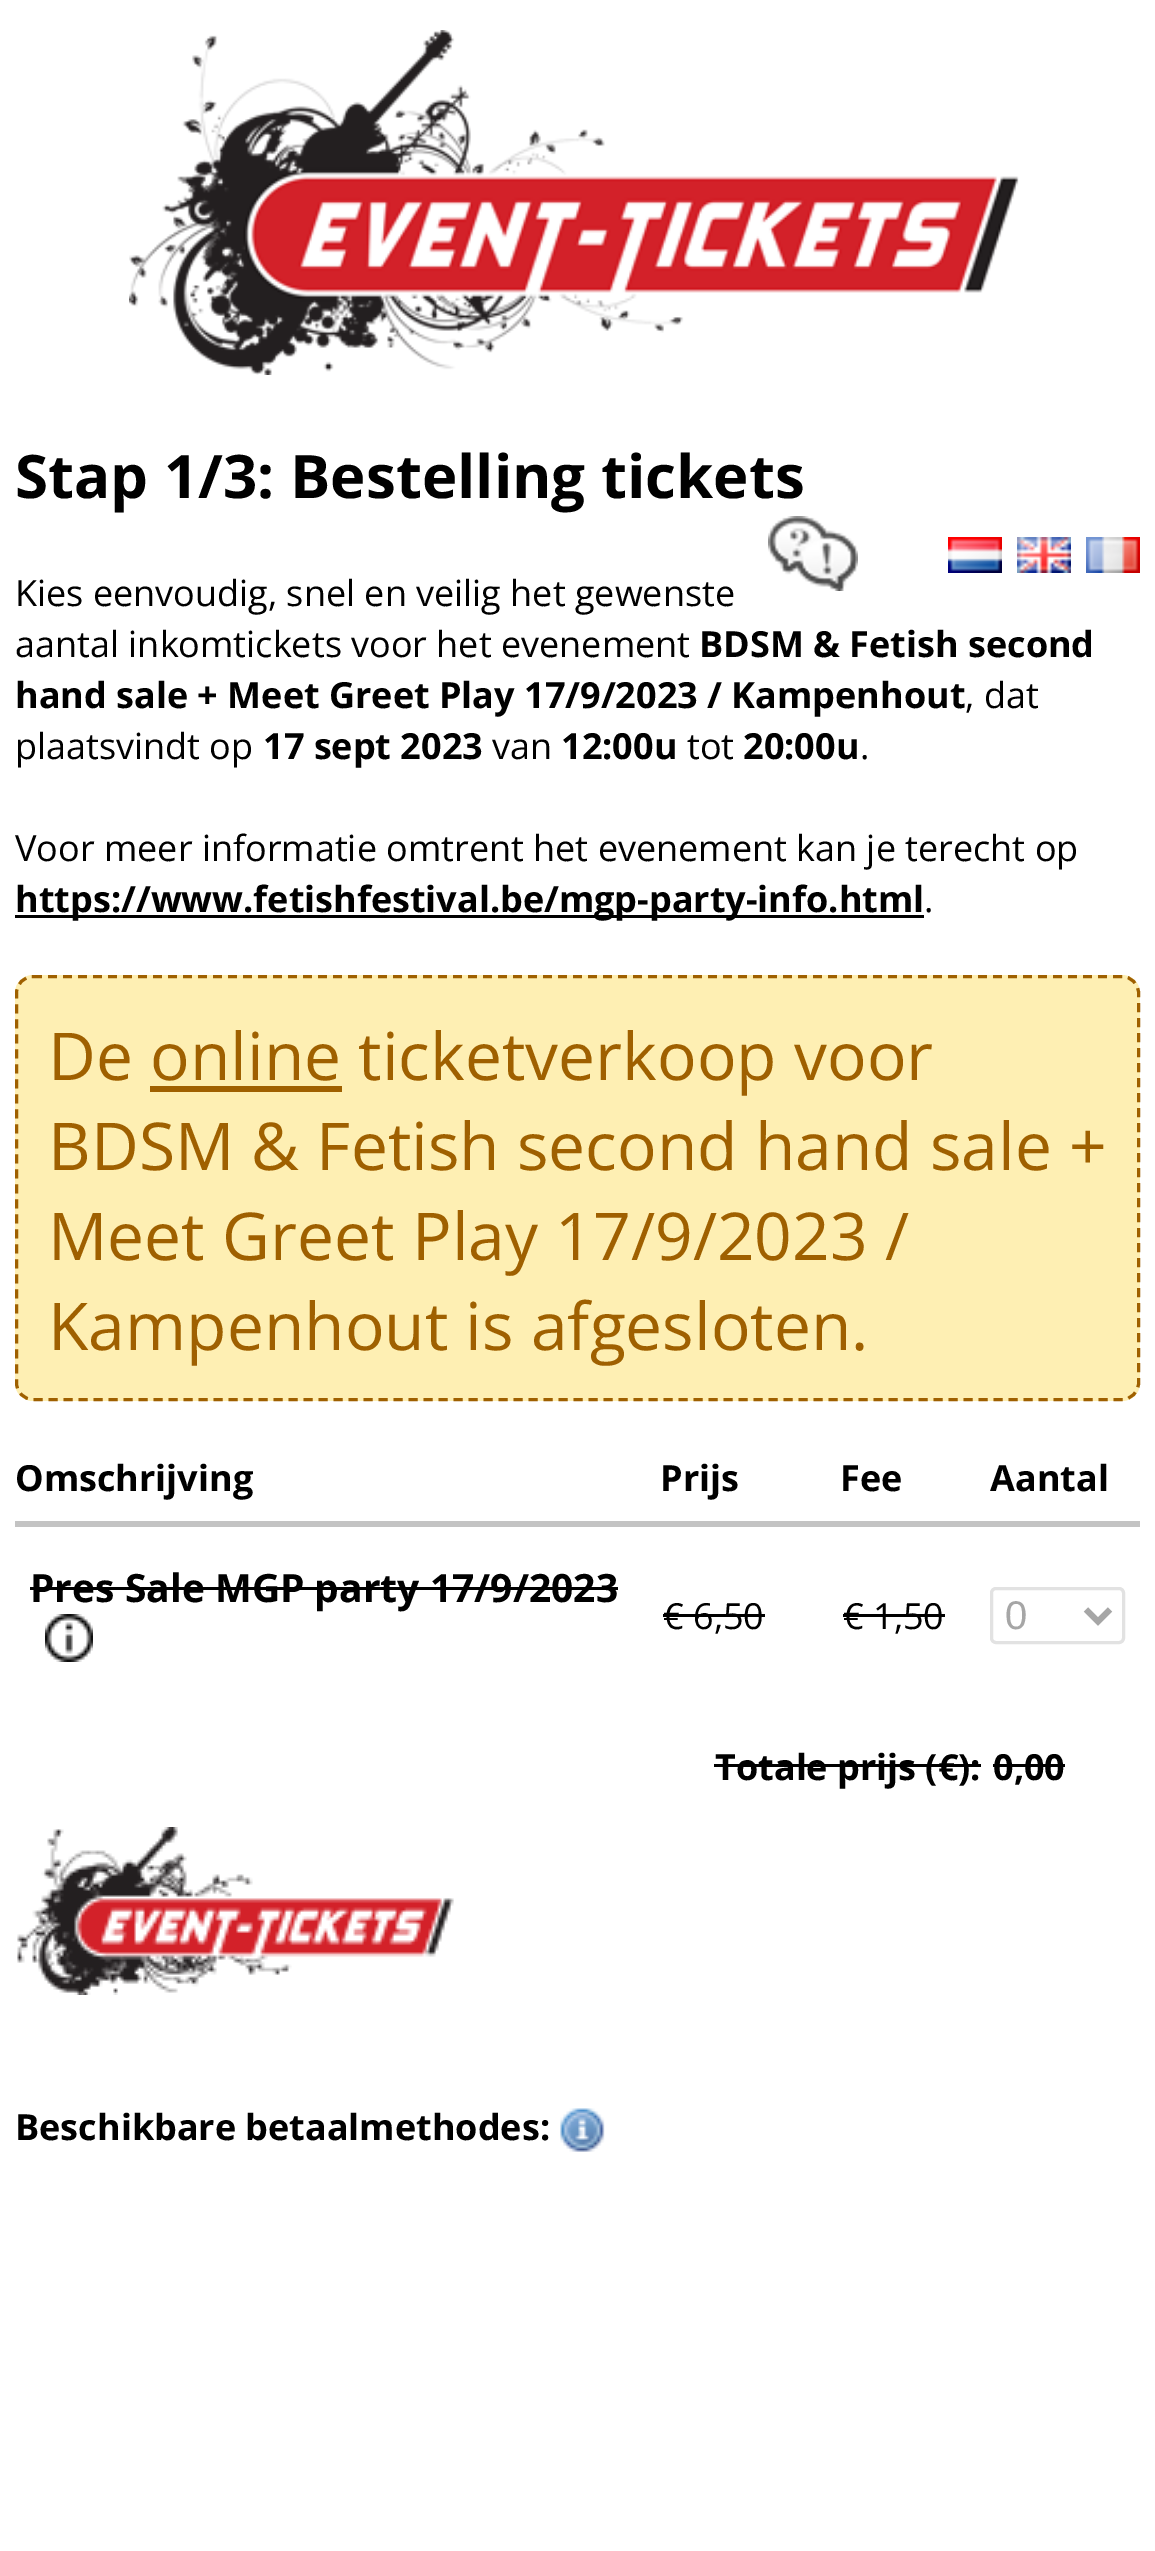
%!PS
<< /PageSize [1155 2551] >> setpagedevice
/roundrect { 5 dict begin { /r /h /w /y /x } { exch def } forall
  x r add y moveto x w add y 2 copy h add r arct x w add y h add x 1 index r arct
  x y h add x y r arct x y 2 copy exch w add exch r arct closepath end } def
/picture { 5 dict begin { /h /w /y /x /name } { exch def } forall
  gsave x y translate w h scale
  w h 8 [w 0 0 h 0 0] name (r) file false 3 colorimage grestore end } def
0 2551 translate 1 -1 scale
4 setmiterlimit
1 setgray
0 0 1155 2551 rectfill
(img1.rgb) 129 30 890 345 picture
/OpenSans-Bold [60 0 0 -60 0 0] selectfont
0 setgray
15 498 moveto (Stap 1/3: Bestelling tickets) show
(img2.rgb) 768 516 90 75 picture
(img3.rgb) 948 537 54 36 picture
(img4.rgb) 1017 537 54 36 picture
(img5.rgb) 1086 537 54 36 picture
/OpenSans-Regular [36 0 0 -36 0 0] selectfont
15 606 moveto (Kies eenvoudig, snel en veilig het gewenste) show
15 657 moveto (aantal inkomtickets voor het evenement) show
/OpenSans-Bold [36 0 0 -36 0 0] selectfont
699 657 moveto (BDSM & Fetish second) show
15 708 moveto (hand sale + Meet Greet Play 17/9/2023 / Kampenhout) show
/OpenSans-Regular [36 0 0 -36 0 0] selectfont
965 708 moveto (, dat) show
15 759 moveto (plaatsvindt op) show
/OpenSans-Bold [36 0 0 -36 0 0] selectfont
263 759 moveto (17 sept 2023) show
/OpenSans-Regular [36 0 0 -36 0 0] selectfont
492 759 moveto (van) show
/OpenSans-Bold [36 0 0 -36 0 0] selectfont
561 759 moveto (12:00u) show
/OpenSans-Regular [36 0 0 -36 0 0] selectfont
687 759 moveto (tot) show
/OpenSans-Bold [36 0 0 -36 0 0] selectfont
743 759 moveto (20:00u) show
/OpenSans-Regular [36 0 0 -36 0 0] selectfont
860 759 moveto (.) show
15 861 moveto (Voor meer informatie omtrent het evenement kan je terecht op) show
15 915 909 3 rectfill
/OpenSans-Bold [36 0 0 -36 0 0] selectfont
15 912 moveto (https://www.fetishfestival.be/mgp-party-info.html) show
/OpenSans-Regular [36 0 0 -36 0 0] selectfont
924 912 moveto (.) show
0.996 0.937 0.702 setrgbcolor
15 975 1125 426 18 roundrect fill
0.624 0.376 0 setrgbcolor
3 setlinewidth
[9 6] 0 setdash
newpath 33 976.5 moveto 1122 976.5 lineto 1131 976.5 1138.5 984 1138.5 993 curveto 1138.5 1383 lineto 1138.5 1392 1131 1399.5 1122 1399.5 curveto 33 1399.5 lineto 24 1399.5 16.5 1392 16.5 1383 curveto 16.5 993 lineto 16.5 984 24 976.5 33 976.5 curveto closepath stroke
/OpenSans-Regular [66 0 0 -66 0 0] selectfont
48 1080 moveto (De online ticketverkoop voor) show
150 1086 192 6 rectfill
48 1170 moveto (BDSM & Fetish second hand sale +) show
48 1260 moveto (Meet Greet Play 17/9/2023 /) show
48 1350 moveto (Kampenhout is afgesloten.) show
/OpenSans-Bold [36 0 0 -36 0 0] selectfont
0 setgray
15 1491 moveto (Omschrijving) show
660 1491 moveto (Prijs) show
840 1491 moveto (Fee) show
990 1491 moveto (Aantal) show
0.765 setgray
15 1521 1125 6 rectfill
/OpenSans-Bold [39 0 0 -39 0 0] selectfont
0 setgray
30 1602 moveto (Pres Sale MGP party 17/9/2023) show
30 1587 588 3 rectfill
(img6.rgb) 45 1614 48 48 picture
/OpenSans-Regular [36 0 0 -36 0 0] selectfont
663 1629 moveto (€ 6,50) show
663 1614 102 3 rectfill
843 1629 moveto (€ 1,50) show
843 1614 102 3 rectfill
0.886 setgray
[] 0 setdash
991.5 1588.5 132 54 4.5 roundrect stroke
0.651 setgray
6 setlinewidth
newpath 1086 1609.5 moveto 1098 1621.5 lineto 1110 1609.5 lineto stroke
/LiberationSans-Regular [40 0 0 -40 0 0] selectfont
1005 1629 moveto (0) show
/OpenSans-Bold [36 0 0 -36 0 0] selectfont
0 setgray
715 1780 moveto (Totale prijs \(€\):) show
714 1764 267 3 rectfill
993 1780 moveto (0,00) show
993 1764 72 3 rectfill
(img7.rgb) 17 1827 437 168 picture
15 2140 moveto (Beschikbare betaalmethodes:) show
(img8.rgb) 560 2108 45 44 picture
showpage
